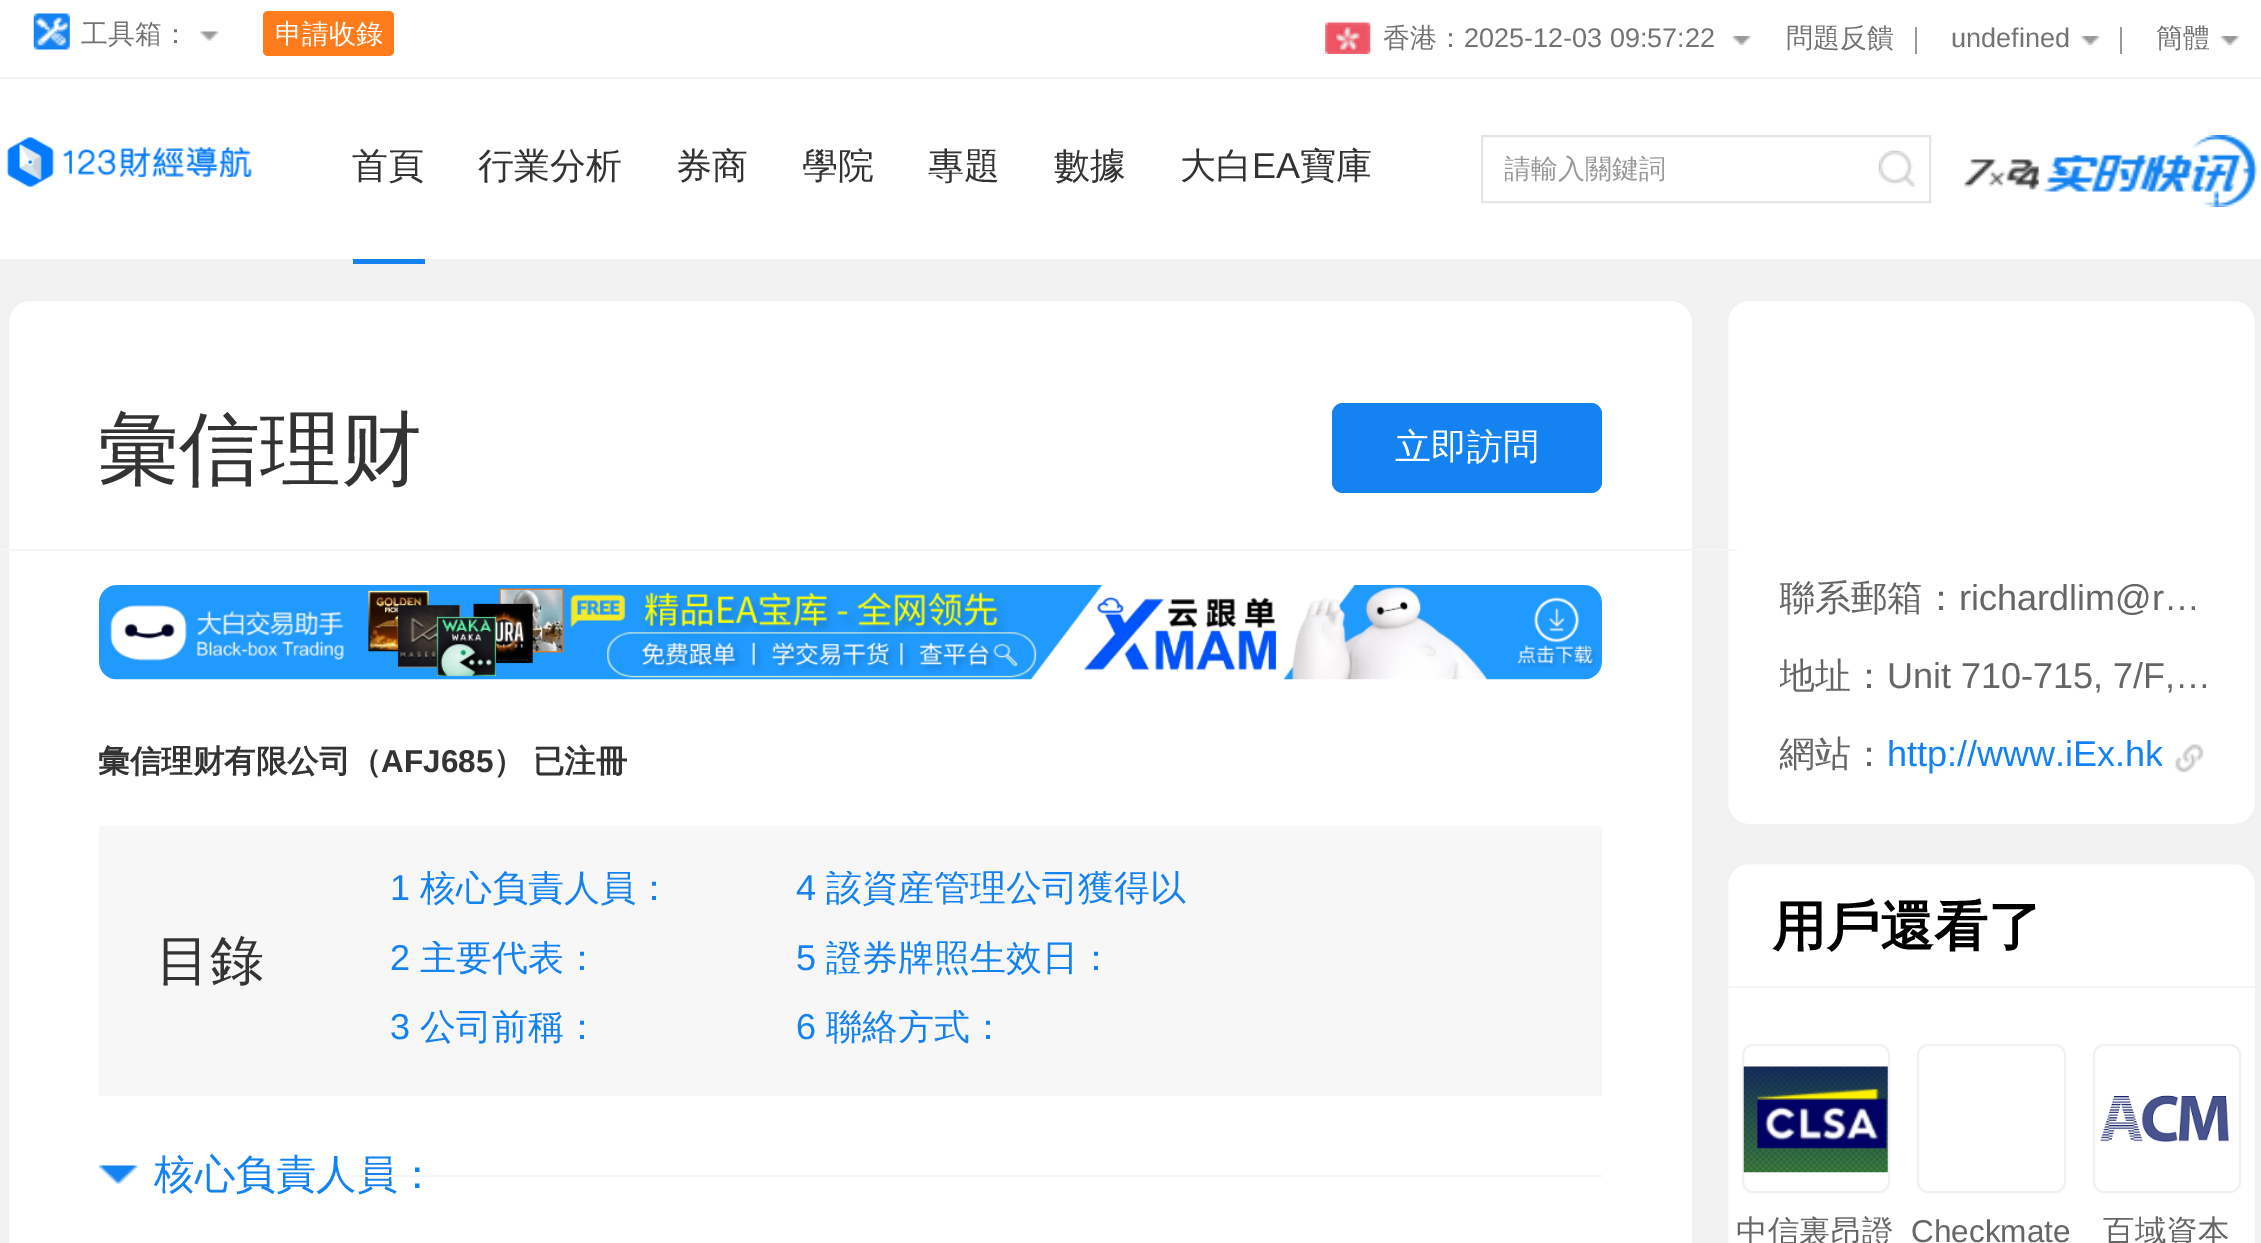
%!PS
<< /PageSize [2261 1243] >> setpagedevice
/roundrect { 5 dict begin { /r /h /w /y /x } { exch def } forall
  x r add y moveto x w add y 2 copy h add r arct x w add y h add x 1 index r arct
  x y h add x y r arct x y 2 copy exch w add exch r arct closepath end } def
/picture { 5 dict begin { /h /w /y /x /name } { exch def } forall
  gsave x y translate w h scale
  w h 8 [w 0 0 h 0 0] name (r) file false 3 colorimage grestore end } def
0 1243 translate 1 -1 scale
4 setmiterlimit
0.949 setgray
0 0 2261 1243 rectfill
1 setgray
0 0 2261 259 rectfill
0.945 0.953 0.965 setrgbcolor
0 77 2261 2 rectfill
(img1.rgb) 33 13 37 37 picture
/WenQuanYiZenHei-Medium [27 0 0 -27 0 0] selectfont
0.451 setgray
81 43 moveto (工具箱：) show
(img2.rgb) 200 31 19 10 picture
1 0.486 0.11 setrgbcolor
263 11 131 45 5 roundrect fill
1 setgray
275 43 moveto (申請收錄) show
(img3.rgb) 1325 22 46 32 picture
0.451 setgray
1383 47 moveto (香港：) show
/LiberationSans-Regular [27 0 0 -27 0 0] selectfont
1464 47 moveto (2025-12-03 09:57:22) show
(img4.rgb) 1732 36 19 9 picture
/WenQuanYiZenHei-Medium [27 0 0 -27 0 0] selectfont
1786 47 moveto (問題反饋) show
0.6 setgray
1915 27 2 27 rectfill
/LiberationSans-Regular [27 0 0 -27 0 0] selectfont
0.451 setgray
1951 47 moveto (undefined) show
(img5.rgb) 2081 36 19 9 picture
0.6 setgray
2120 27 2 27 rectfill
/WenQuanYiZenHei-Medium [27 0 0 -27 0 0] selectfont
0.451 setgray
2156 47 moveto (簡體) show
(img6.rgb) 2220 36 19 9 picture
(img7.rgb) 6 137 246 50 picture
/WenQuanYiZenHei-Medium [36 0 0 -36 0 0] selectfont
0.2 setgray
352 178 moveto (首頁) show
0.078 0.51 0.941 setrgbcolor
353 259 72 5 rectfill
0.2 setgray
478 178 moveto (行業分析) show
676 178 moveto (券商) show
802 178 moveto (學院) show
928 178 moveto (專題) show
1054 178 moveto (數據) show
1180 178 moveto (大白) show
/LiberationSans-Regular [36 0 0 -36 0 0] selectfont
1252 178 moveto (EA) show
/WenQuanYiZenHei-Medium [36 0 0 -36 0 0] selectfont
1300 178 moveto (寶庫) show
0.898 setgray
2 setlinewidth
1482 136 448 66 rectstroke
gsave
1505 151 423 38 rectclip
/WenQuanYiZenHei-Medium [27 0 0 -27 0 0] selectfont
0.6 setgray
1504 178 moveto (請輸入關鍵詞) show
grestore
(img8.rgb) 1878 150 37 37 picture
(img9.rgb) 1964 135 293 72 picture
1 setgray
8 300 1685 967 22 roundrect gsave fill grestore
0.941 0.945 0.949 setrgbcolor
stroke
/WenQuanYiZenHei-Medium [81 0 0 -81 0 0] selectfont
0.2 setgray
98 477 moveto (彙信理财) show
0.078 0.51 0.941 setrgbcolor
1332 403 270 90 11 roundrect fill
/WenQuanYiZenHei-Medium [36 0 0 -36 0 0] selectfont
1 setgray
1395 459 moveto (立即訪問) show
1727 300 529 525 22 roundrect gsave fill grestore
0.941 0.945 0.949 setrgbcolor
stroke
0.961 setgray
0 549 1737 2 rectfill
(img10.rgb) 99 585 1503 95 picture
/WenQuanYiZenHei-Bold [31.5 0 0 -31.5 0 0] selectfont
0.2 setgray
98 772 moveto (彙信理财有限公司（) show
/LiberationSans-Bold [31.5 0 0 -31.5 0 0] selectfont
381 772 moveto (AFJ685) show
/WenQuanYiZenHei-Bold [31.5 0 0 -31.5 0 0] selectfont
493 772 moveto -1 0 32 (） 已注冊) widthshow
0.969 setgray
99 826 1503 270 rectfill
/WenQuanYiZenHei-Medium [54 0 0 -54 0 0] selectfont
0.2 setgray
156 979 moveto (目錄) show
/LiberationSans-Regular [36 0 0 -36 0 0] selectfont
0.078 0.51 0.941 setrgbcolor
390 900 moveto (1) show
gsave
392 871 396 36 rectclip
/WenQuanYiZenHei-Medium [36 0 0 -36 0 0] selectfont
420 900 moveto (核心負責人員：) show
grestore
390 970 moveto (2) show
gsave
392 941 396 36 rectclip
/WenQuanYiZenHei-Medium [36 0 0 -36 0 0] selectfont
420 970 moveto (主要代表：) show
grestore
390 1039 moveto (3) show
/WenQuanYiZenHei-Medium [36 0 0 -36 0 0] selectfont
420 1039 moveto (公司前稱：) show
/LiberationSans-Regular [36 0 0 -36 0 0] selectfont
796 900 moveto (4) show
gsave
797 871 396 36 rectclip
/WenQuanYiZenHei-Medium [36 0 0 -36 0 0] selectfont
826 900 moveto (該資産管理公司獲得以) show
grestore
796 970 moveto (5) show
gsave
797 941 396 36 rectclip
/WenQuanYiZenHei-Medium [36 0 0 -36 0 0] selectfont
826 970 moveto (證券牌照生效日：) show
grestore
796 1039 moveto (6) show
gsave
797 1010 396 36 rectclip
/WenQuanYiZenHei-Medium [36 0 0 -36 0 0] selectfont
826 1039 moveto (聯絡方式：) show
grestore
(img11.rgb) 99 1165 39 19 picture
/WenQuanYiZenHei-Medium [40.5 0 0 -40.5 0 0] selectfont
154 1188 moveto (核心負責人員：) show
0.961 setgray
353 1175 1249 2 rectfill
gsave
1780 569 441 59 rectclip
/WenQuanYiZenHei-Medium [36 0 0 -36 0 0] selectfont
0.4 setgray
1779 610 moveto (聯系郵箱：) show
grestore
/LiberationSans-Regular [36 0 0 -36 0 0] selectfont
0.4 setgray
1959 610 moveto (richardlim@r…) show
gsave
1780 648 441 56 rectclip
/WenQuanYiZenHei-Medium [36 0 0 -36 0 0] selectfont
1779 688 moveto (地址：) show
grestore
1887 688 moveto (Unit 710-715, 7/F,…) show
gsave
1780 727 441 56 rectclip
/WenQuanYiZenHei-Medium [36 0 0 -36 0 0] selectfont
1779 766 moveto (網站：) show
grestore
gsave
1888 727 274 56 rectclip
0.078 0.51 0.941 setrgbcolor
1887 766 moveto (http://www.iEx.hk) show
grestore
(img12.rgb) 2175 744 29 29 picture
1 setgray
1727 863 529 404 22 roundrect gsave fill grestore
0.941 0.945 0.949 setrgbcolor
stroke
0.961 setgray
1728 986 527 2 rectfill
/WenQuanYiZenHei-Bold [54 0 0 -54 0 0] selectfont
0 setgray
1772 945 moveto (用戶還看了) show
0.941 0.945 0.949 setrgbcolor
1743 1045 146 147 10 roundrect stroke
(img13.rgb) 1743 1066 145 107 picture
/WenQuanYiZenHei-Medium [31.5 0 0 -31.5 0 0] selectfont
0.4 setgray
1736 1242 moveto (中信裏昂證) show
0.941 0.945 0.949 setrgbcolor
1918 1045 147 147 10 roundrect stroke
/LiberationSans-Regular [31.5 0 0 -31.5 0 0] selectfont
0.4 setgray
1911 1242 moveto (Checkmate) show
0.941 0.945 0.949 setrgbcolor
2094 1045 146 147 10 roundrect stroke
(img14.rgb) 2100 1095 129 47 picture
/WenQuanYiZenHei-Medium [31.5 0 0 -31.5 0 0] selectfont
0.4 setgray
2103 1242 moveto (百域資本) show
showpage
